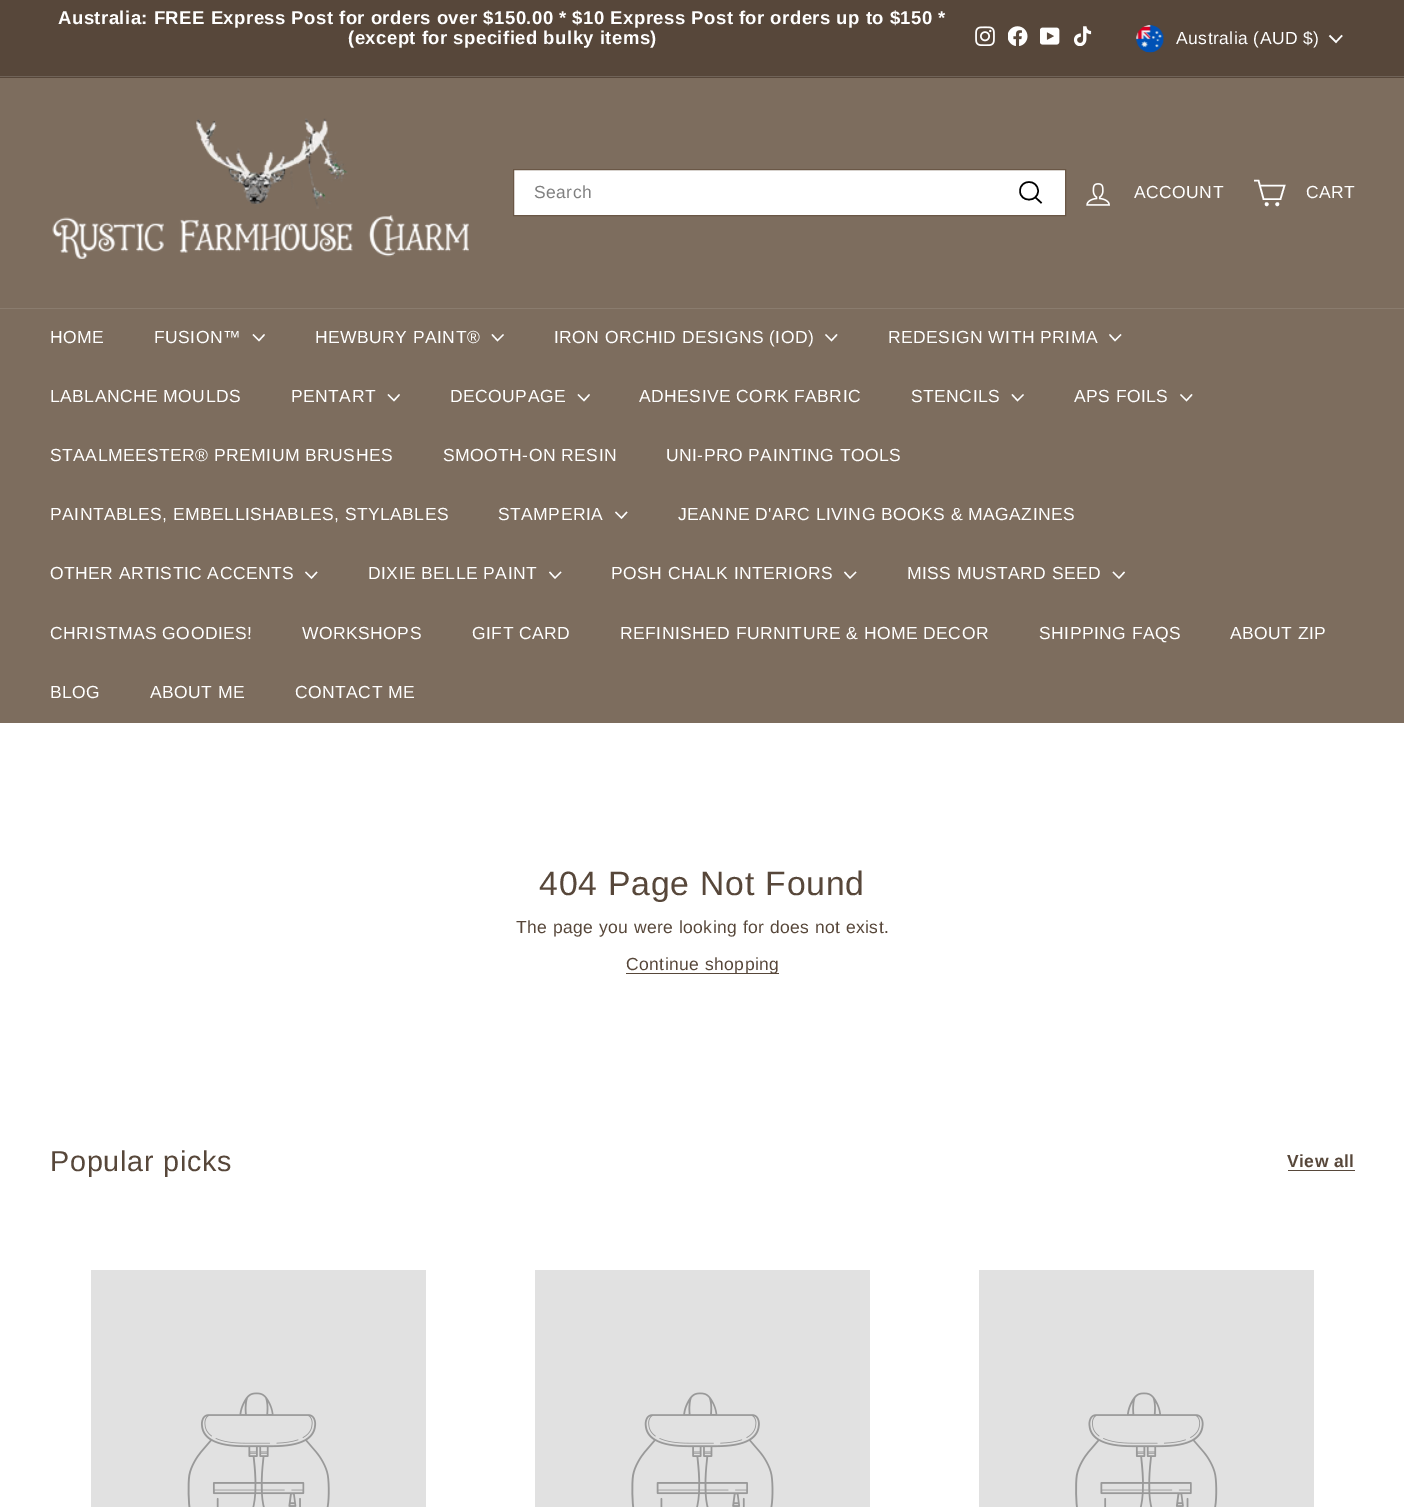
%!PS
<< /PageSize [1404 1507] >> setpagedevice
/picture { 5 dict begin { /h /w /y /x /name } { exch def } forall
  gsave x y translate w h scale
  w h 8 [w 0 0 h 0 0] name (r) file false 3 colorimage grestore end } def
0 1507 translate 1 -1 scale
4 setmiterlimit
1 setgray
0 0 1404 1507 rectfill
0.341 0.278 0.227 setrgbcolor
0 0 1404 78 rectfill
/LiberationSans-Bold [18.55 0 0 -18.55 0 0] selectfont
1 setgray
58 24 moveto 0.45 0 (Australia: FREE Express Post for orders over $150.00 * $10 Express Post for orders up to $150 *) ashow
348 44 moveto 0.45 0 (\(except for specified bulky items\)) ashow
(img1.rgb) 975 26 20 20 picture
(img2.rgb) 1008 26 20 20 picture
(img3.rgb) 1040 27 20 18 picture
(img4.rgb) 1073 26 19 20 picture
(img5.rgb) 1136 25 28 28 picture
/LiberationSans-Regular [17.5 0 0 -17.5 0 0] selectfont
1176 44 moveto 0.45 0 (Australia \(AUD $\)) ashow
1.5 setlinewidth
newpath 1329.5 35.5 moveto 1336 42 lineto 1342 35.5 lineto stroke
0.439 0.388 0.345 setrgbcolor
0 76 1404 1 rectfill
0.49 0.427 0.369 setrgbcolor
0 78 1404 230 rectfill
(img6.rgb) 52 118 417 141 picture
1 setgray
newpath 513.5 169.5 moveto 1065.5 169.5 lineto 1065.5 215.5 lineto 513.5 215.5 lineto closepath gsave fill grestore
0.416 0.341 0.275 setrgbcolor
1 setlinewidth
stroke
0.502 setgray
534 198 moveto 0.45 0 (Search) ashow
0 setgray
1.5 setlinewidth
newpath 1038 191 moveto 1038 202.5 1020 202.5 1020 191 curveto 1020 179 1038 179 1038 191 curveto closepath 1041.5 203 moveto 1035.5 197.5 lineto stroke
(img7.rgb) 1086 183 24 23 picture
1 setgray
1134 198 moveto 0.45 0 (ACCOUNT) ashow
1.6 setlinewidth
newpath 1260 185.5 moveto 1284.5 185.5 lineto 1280.5 199 lineto 1263.5 199 lineto 1258.5 180.5 lineto 1254 180.5 lineto stroke
newpath 1266.7 204.2 1.1 0 360 arc closepath stroke
newpath 1277.3 204.2 1.1 0 360 arc closepath stroke
1306 198 moveto 0.45 0 (CART) ashow
0.49 0.427 0.369 setrgbcolor
0 309 1404 414 rectfill
0.541 0.486 0.431 setrgbcolor
0 308 1404 1 rectfill
1 setgray
50 343 moveto 0.45 0 (HOME) ashow
154 343 moveto 0.45 0 (FUSION™) ashow
1.3 setlinewidth
newpath 253 334.5 moveto 259 340.5 lineto 264.5 334.5 lineto stroke
315 343 moveto 0.45 0 (HEWBURY PAINT®) ashow
newpath 492 334.5 moveto 497.5 340.5 lineto 503.5 334.5 lineto stroke
554 343 moveto 0.45 0 (IRON ORCHID DESIGNS \(IOD\)) ashow
newpath 825.5 334.5 moveto 831.5 340.5 lineto 837 334.5 lineto stroke
888 343 moveto 0.45 0 (REDESIGN WITH PRIMA) ashow
newpath 1109.5 334.5 moveto 1115 340.5 lineto 1121 334.5 lineto stroke
50 402 moveto 0.45 0 (LABLANCHE MOULDS) ashow
291 402 moveto 0.45 0 (PENTART) ashow
newpath 388 394.5 moveto 394 400.5 lineto 399.5 394.5 lineto stroke
450 402 moveto 0.45 0 (DECOUPAGE) ashow
newpath 578 394.5 moveto 584 400.5 lineto 589.5 394.5 lineto stroke
639 402 moveto 0.45 0 (ADHESIVE CORK FABRIC) ashow
911 402 moveto 0.45 0 (STENCILS) ashow
newpath 1012 394.5 moveto 1017.5 400.5 lineto 1023.5 394.5 lineto stroke
1074 402 moveto 0.45 0 (APS FOILS) ashow
newpath 1180.5 394.5 moveto 1186.5 400.5 lineto 1192 394.5 lineto stroke
50 461 moveto 0.45 0 (STAALMEESTER® PREMIUM BRUSHES) ashow
443 461 moveto 0.45 0 (SMOOTH-ON RESIN) ashow
666 461 moveto 0.45 0 (UNI-PRO PAINTING TOOLS) ashow
50 520 moveto 0.45 0 (PAINTABLES, EMBELLISHABLES, STYLABLES) ashow
498 520 moveto 0.45 0 (STAMPERIA) ashow
newpath 615.5 512 moveto 621.5 518 lineto 627 512 lineto stroke
678 520 moveto 0.45 0 (JEANNE D'ARC LIVING BOOKS & MAGAZINES) ashow
50 579 moveto 0.45 0 (OTHER ARTISTIC ACCENTS) ashow
newpath 305.5 572 moveto 311.5 578 lineto 317 572 lineto stroke
368 579 moveto 0.45 0 (DIXIE BELLE PAINT) ashow
newpath 549.5 572 moveto 555 578 lineto 561 572 lineto stroke
611 579 moveto 0.45 0 (POSH CHALK INTERIORS) ashow
newpath 844.5 572 moveto 850 578 lineto 856 572 lineto stroke
907 579 moveto 0.45 0 (MISS MUSTARD SEED) ashow
newpath 1113 572 moveto 1119 578 lineto 1124.5 572 lineto stroke
50 639 moveto 0.45 0 (CHRISTMAS GOODIES!) ashow
302 639 moveto 0.45 0 (WORKSHOPS) ashow
472 639 moveto 0.45 0 (GIFT CARD) ashow
620 639 moveto 0.45 0 (REFINISHED FURNITURE & HOME DECOR) ashow
1039 639 moveto 0.45 0 (SHIPPING FAQS) ashow
1230 639 moveto 0.45 0 (ABOUT ZIP) ashow
50 698 moveto 0.45 0 (BLOG) ashow
150 698 moveto 0.45 0 (ABOUT ME) ashow
295 698 moveto 0.45 0 (CONTACT ME) ashow
/LiberationSans-Regular [33.75 0 0 -33.75 0 0] selectfont
0.341 0.278 0.227 setrgbcolor
539 895 moveto 0.8 0 (404 Page Not Found) ashow
/LiberationSans-Regular [17.5 0 0 -17.5 0 0] selectfont
516 933 moveto 0.45 0 (The page you were looking for does not exist.) ashow
626 973 153 1 rectfill
626 970 moveto 0.45 0 (Continue shopping) ashow
/LiberationSans-Regular [28.75 0 0 -28.75 0 0] selectfont
50 1171 moveto 0.75 0 (Popular picks) ashow
/LiberationSans-Bold [17.5 0 0 -17.5 0 0] selectfont
1287 1167 moveto 0.45 0 (View all) ashow
1288 1170 67 1 rectfill
0.882 setgray
91 1270 335 237 rectfill
(img8.rgb) 187 1392 143 115 picture
535 1270 335 237 rectfill
(img9.rgb) 631 1392 143 115 picture
979 1270 335 237 rectfill
(img10.rgb) 1075 1392 143 115 picture
showpage
